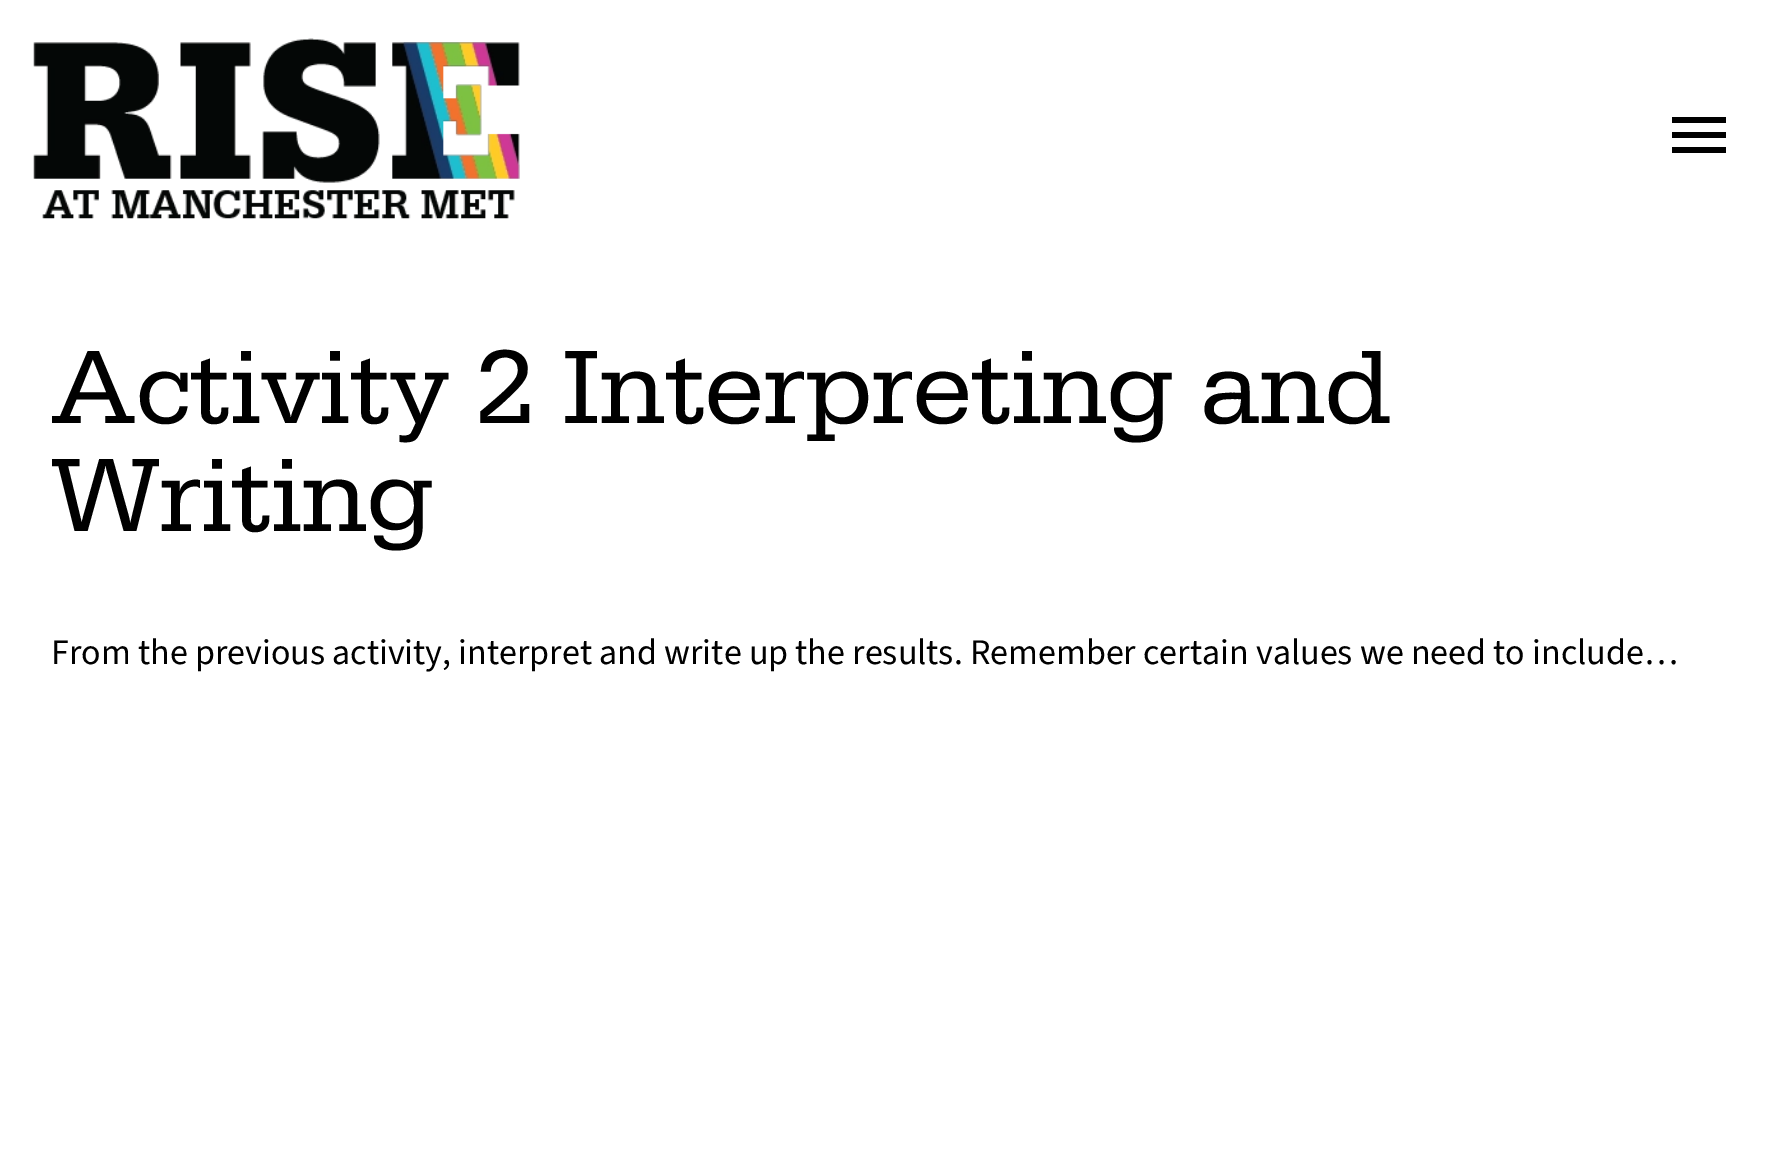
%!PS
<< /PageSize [1788 1162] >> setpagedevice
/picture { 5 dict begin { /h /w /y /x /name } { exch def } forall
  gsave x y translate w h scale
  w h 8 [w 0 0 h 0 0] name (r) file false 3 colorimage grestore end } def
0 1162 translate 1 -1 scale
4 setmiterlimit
1 setgray
0 0 1788 1162 rectfill
(img1.rgb) 33 38 487 181 picture
0 setgray
newpath 1672 153 moveto 1726 153 lineto 1726 147 lineto 1672 147 lineto closepath 1672 138 moveto 1726 138 lineto 1726 132 lineto 1672 132 lineto closepath 1672 117 moveto 1672 123 lineto 1726 123 lineto 1726 117 lineto closepath fill
/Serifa-Regular [108 0 0 -108 0 0] selectfont
51 423 moveto (Activity 2 Interpreting and) show
51 531 moveto (Writing) show
/SourceSans3-Regular [36 0 0 -36 0 0] selectfont
51 664 moveto (From the previous activity, interpret and write up the results. Remember certain values we need to include…) show
showpage
